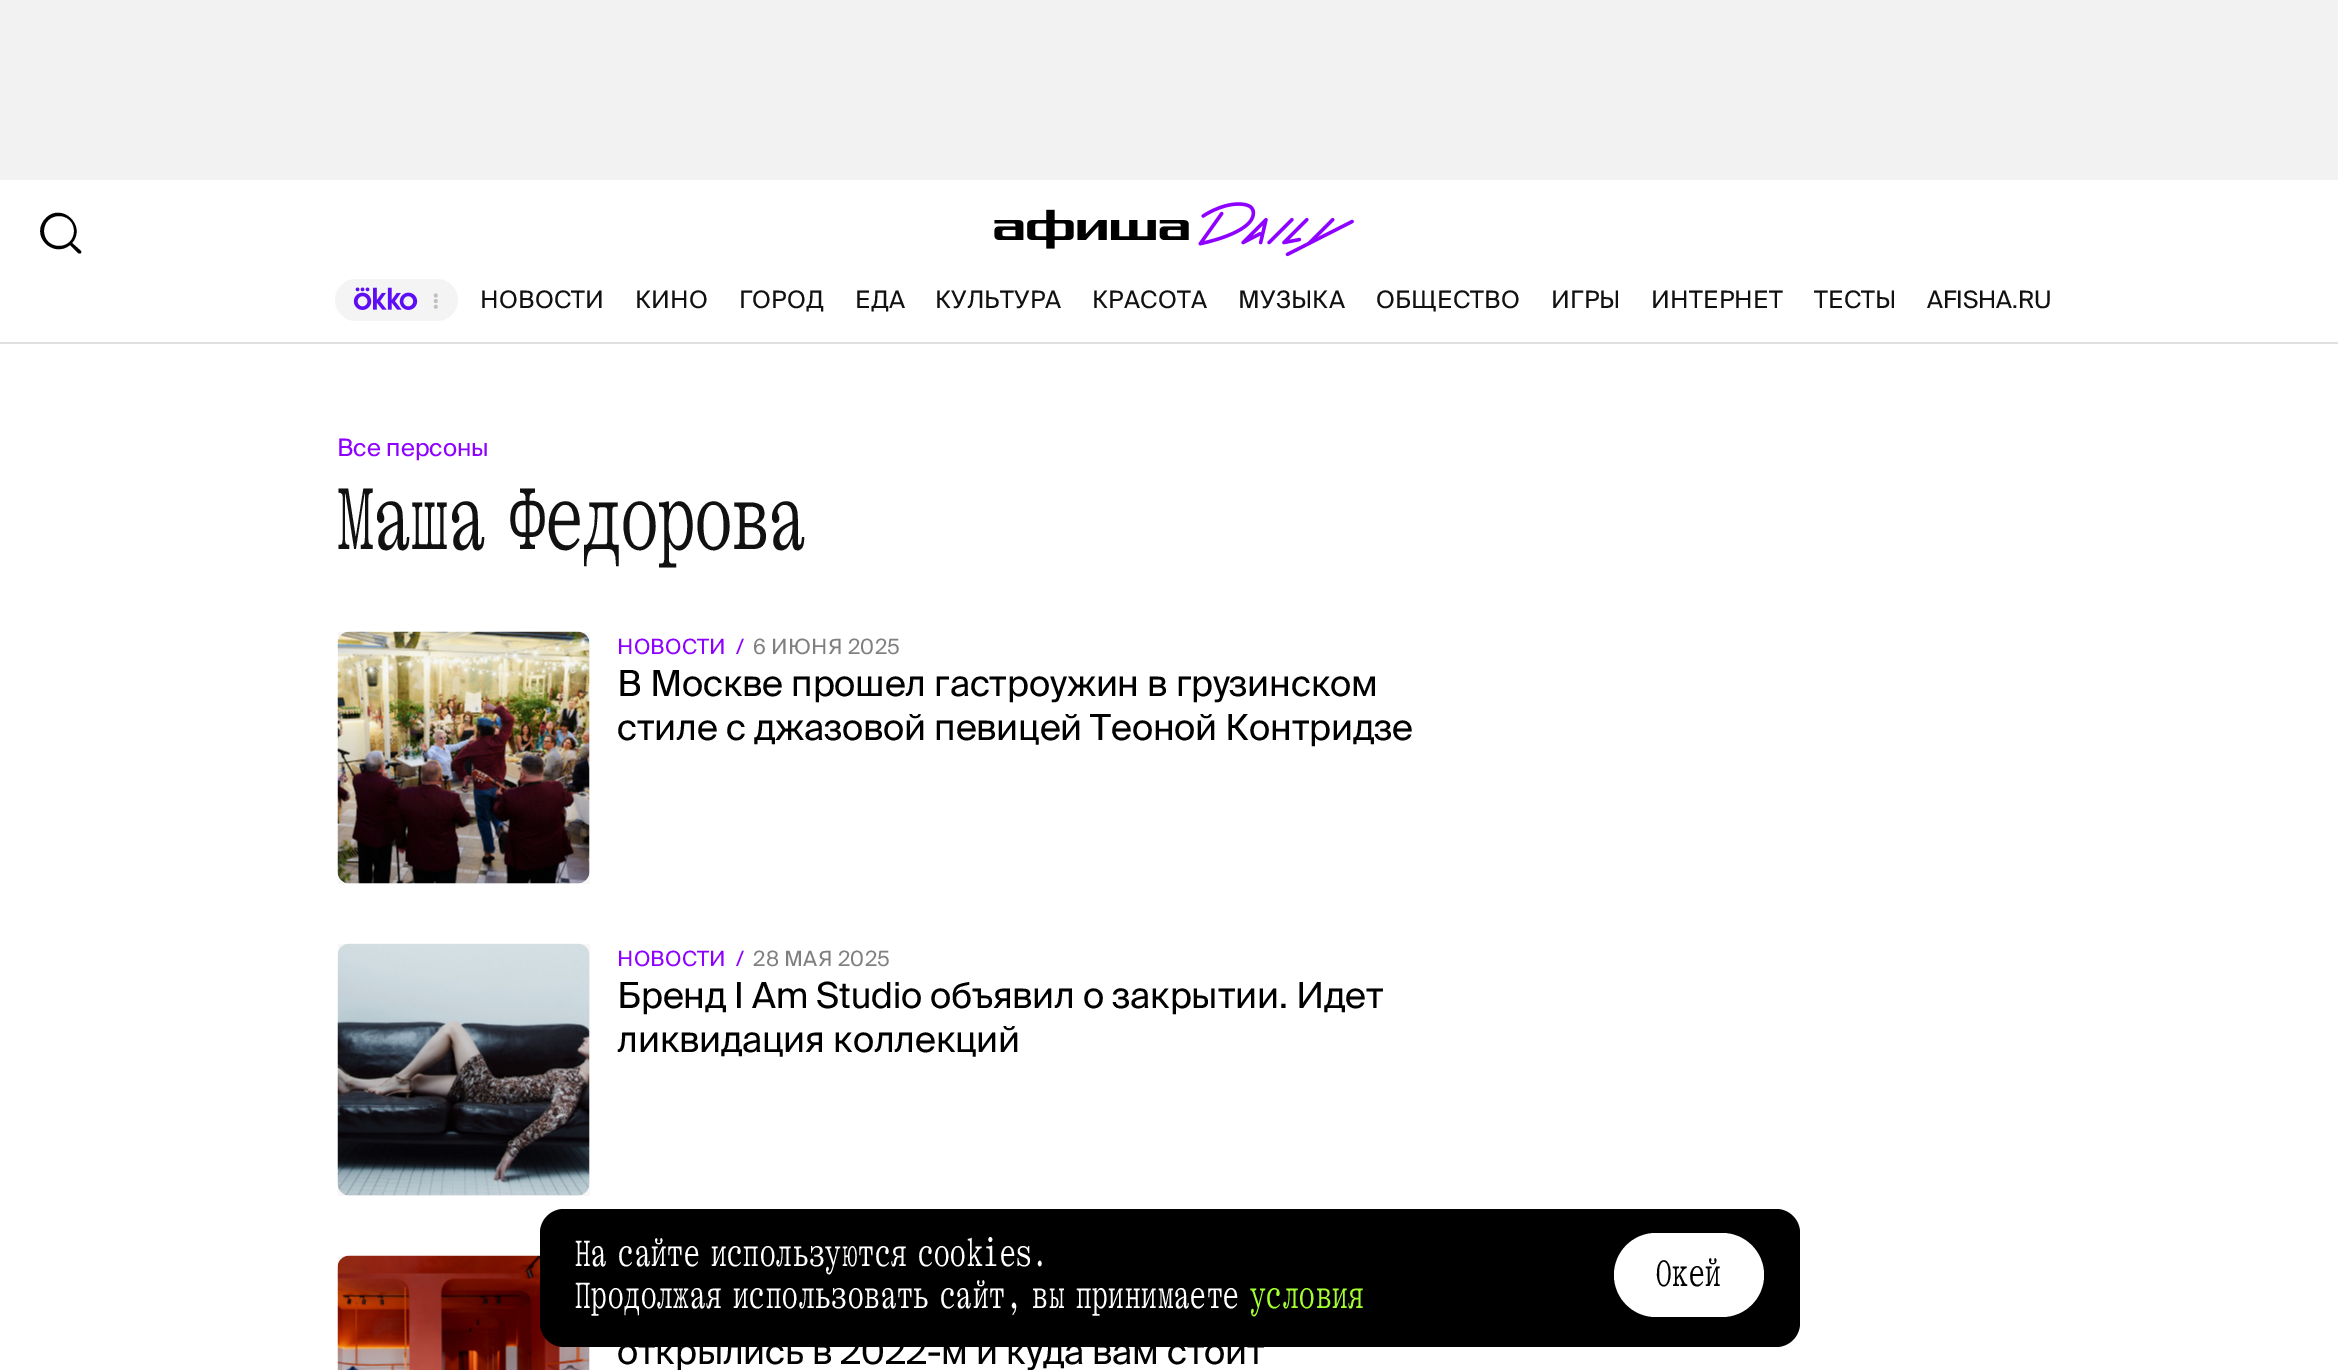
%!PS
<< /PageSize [2338 1370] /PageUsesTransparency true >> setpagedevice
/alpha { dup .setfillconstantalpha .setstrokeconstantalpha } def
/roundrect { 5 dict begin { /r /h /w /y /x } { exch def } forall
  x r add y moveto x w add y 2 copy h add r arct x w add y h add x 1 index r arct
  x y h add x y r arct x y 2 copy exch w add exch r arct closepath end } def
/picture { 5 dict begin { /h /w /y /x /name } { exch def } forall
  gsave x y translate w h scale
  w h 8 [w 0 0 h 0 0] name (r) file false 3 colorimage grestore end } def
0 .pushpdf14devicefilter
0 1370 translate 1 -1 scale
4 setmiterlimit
1 setgray
0 0 2338 1370 rectfill
0.949 setgray
0 0 2338 180 rectfill
(img1.rgb) 994 202 360 55 picture
0.878 setgray
0 342 2338 2 rectfill
0 setgray
newpath 74 231 moveto 74 251 44 251 44 231 curveto 44 211 74 211 74 231 curveto 70 245 moveto 53 259 29 235 46 218 curveto 62 202 87 226 72 243 curveto 81 251 lineto 82 253 80 254 78 253 curveto closepath eofill
0.957 setgray
335 279 123 42 21 roundrect fill
(img2.rgb) 353 287 65 23 picture
0.749 setgray
newpath 435.8 295.5 1.9 0 360 arc closepath fill
newpath 435.8 301.1 1.9 0 360 arc closepath fill
newpath 435.8 306.8 1.9 0 360 arc closepath fill
/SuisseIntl-Regular [24 0 0 -24 0 0] selectfont
0.067 setgray
480 308 moveto 0.25 0 (НОВОСТИ) ashow
635 308 moveto 0.25 0 (КИНО) ashow
739 308 moveto 0.25 0 (ГОРОД) ashow
855 308 moveto 0.25 0 (ЕДА) ashow
935 308 moveto 0.25 0 (КУЛЬТУРА) ashow
1092 308 moveto 0.25 0 (КРАСОТА) ashow
1238 308 moveto 0.25 0 (МУЗЫКА) ashow
1376 308 moveto 0.25 0 (ОБЩЕСТВО) ashow
1551 308 moveto 0.25 0 (ИГРЫ) ashow
1651 308 moveto 0.25 0 (ИНТЕРНЕТ) ashow
1814 308 moveto 0.25 0 (ТЕСТЫ) ashow
1927 308 moveto (AFISHA.RU) show
0.557 0 1 setrgbcolor
337 456 moveto (Все персоны) show
/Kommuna-Regular [93 0 0 -93 0 0] selectfont
0.067 setgray
337 549 moveto -14 0 32 (Маша Федорова) widthshow
(img3.rgb) 337 631 253 253 picture
0.03 alpha
0 setgray
338 632 252 252 rectfill
/SuisseIntl-Regular [21 0 0 -21 0 0] selectfont
1 alpha
0.557 0 1 setrgbcolor
617 654 moveto 0.25 0 (НОВОСТИ) ashow
736 654 moveto 0.25 0 (/) ashow
0.502 setgray
753 654 moveto 0.25 0 (6 ИЮНЯ 2025) ashow
/SuisseIntl-Regular [36 0 0 -36 0 0] selectfont
0 setgray
617 696 moveto -0.2 0 (В Москве прошел гастроужин в грузинском) ashow
617 740 moveto -0.2 0 (стиле с джазовой певицей Теоной Контридзе) ashow
(img4.rgb) 337 943 253 253 picture
0.03 alpha
338 944 252 252 rectfill
/SuisseIntl-Regular [21 0 0 -21 0 0] selectfont
1 alpha
0.557 0 1 setrgbcolor
617 966 moveto 0.25 0 (НОВОСТИ) ashow
736 966 moveto 0.25 0 (/) ashow
0.502 setgray
753 966 moveto 0.25 0 (28 МАЯ 2025) ashow
/SuisseIntl-Regular [36 0 0 -36 0 0] selectfont
0 setgray
617 1008 moveto -0.2 0 (Бренд I Am Studio объявил о закрытии. Идет) ashow
617 1052 moveto -0.2 0 (ликвидация коллекций) ashow
(img5.rgb) 337 1255 253 115 picture
0.03 alpha
338 1256 252 114 rectfill
1 alpha
617 1364 moveto -0.2 0 (открылись в 2022-м и куда вам стоит) ashow
540 1209 1260 138 24 roundrect fill
/Kommuna-Regular [39 0 0 -39 0 0] selectfont
1 setgray
575 1266 moveto -6 0 32 0.8 0 (На сайте используются cookies.) awidthshow
575 1308 moveto -6 0 32 0.8 0 (Продолжая использовать сайт, вы принимаете) awidthshow
0.643 1 0.188 setrgbcolor
1250 1308 moveto 0.8 0 (условия) ashow
1 setgray
1614 1233 150 84 42 roundrect fill
0 setgray
1656 1286 moveto 0.8 0 (Окей) ashow
.poppdf14devicefilter showpage
